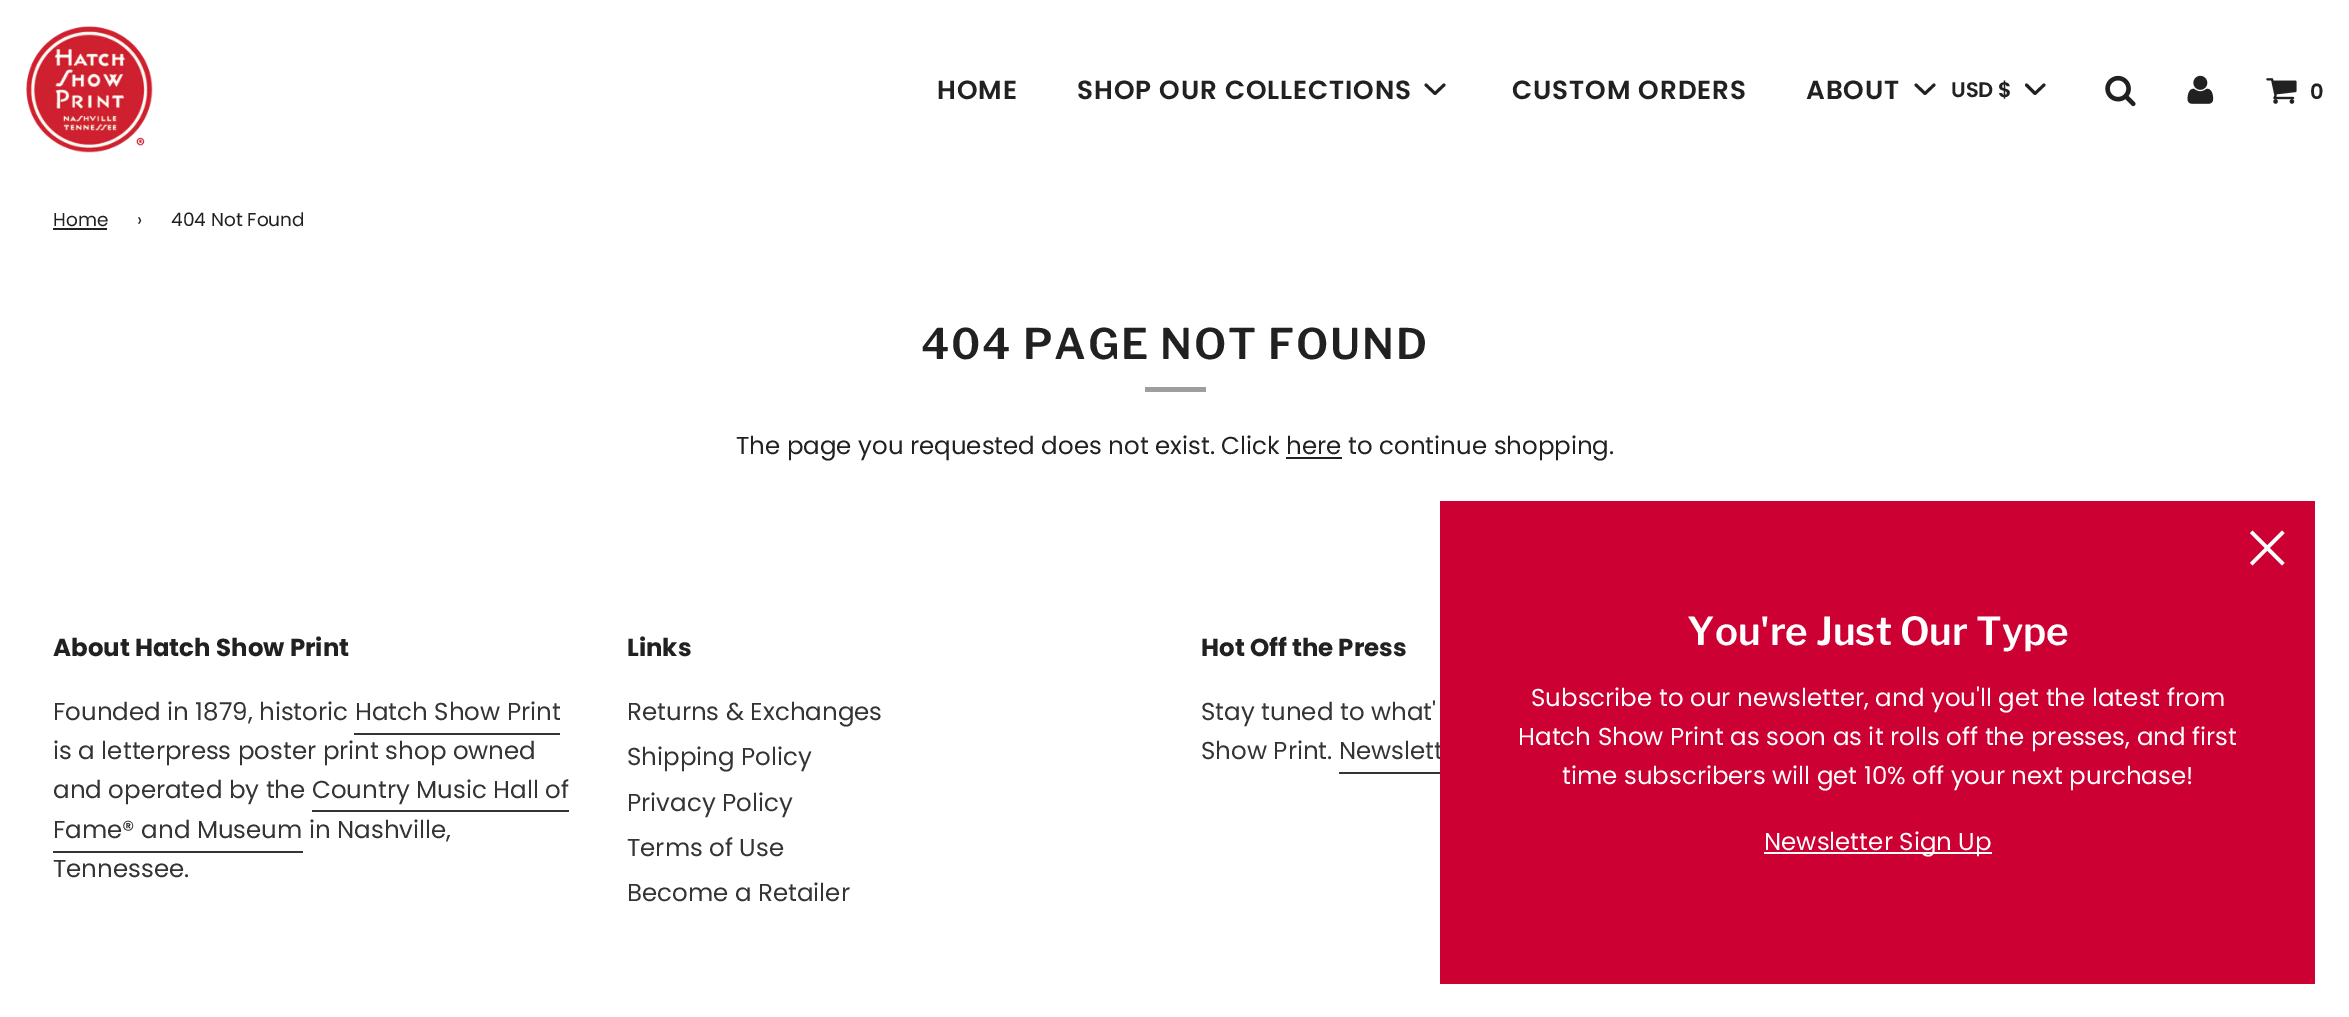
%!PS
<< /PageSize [2349 1017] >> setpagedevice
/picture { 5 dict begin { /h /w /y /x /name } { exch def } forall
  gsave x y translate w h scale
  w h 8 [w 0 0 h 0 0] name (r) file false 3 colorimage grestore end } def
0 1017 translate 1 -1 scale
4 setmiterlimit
1 setgray
0 0 2349 1017 rectfill
(img1.rgb) 26 26 127 127 picture
/Poppins-SemiBold [26.25 0 0 -26.25 0 0] selectfont
0.129 setgray
937 99 moveto 0.9 0 (HOME) ashow
1077 99 moveto 0.9 0 (SHOP OUR COLLECTIONS) ashow
2.9 setlinewidth
1 setlinecap
1 setlinejoin
newpath 1426 85 moveto 1435 93.5 lineto 1444 85 lineto stroke
1512 99 moveto 0.9 0 (CUSTOM ORDERS) ashow
1806 99 moveto 0.9 0 (ABOUT) ashow
newpath 1916 85 moveto 1925 93.5 lineto 1934 85 lineto stroke
/Poppins-SemiBold [21 0 0 -21 0 0] selectfont
1951 97 moveto (USD $) show
newpath 2026.5 85 moveto 2035 93.5 lineto 2044 85 lineto stroke
(img2.rgb) 2105 75 31 32 picture
(img3.rgb) 2187 75 27 29 picture
(img4.rgb) 2266 78 31 26 picture
2310 99 moveto (0) show
/Poppins-Regular [18.5 0 0 -18.5 0 0] selectfont
53 226 moveto (Home) show
53 228 54 2 rectfill
137 226 moveto (›) show
171 226 moveto (404 Not Found) show
/LibreFranklin-SemiBold [42 0 0 -42 0 0] selectfont
921 359 moveto 1.75 0 (404 PAGE NOT FOUND) ashow
0.62 setgray
1145 387 61 5 rectfill
/Poppins-Regular [24.5 0 0 -24.5 0 0] selectfont
0.129 setgray
736 454 moveto (The page you requested does not exist. Click here to continue shopping.) show
1286 457 56 2 rectfill
/Poppins-Bold [24.5 0 0 -24.5 0 0] selectfont
53 656 moveto (About Hatch Show Print) show
/Poppins-Regular [24.5 0 0 -24.5 0 0] selectfont
0.204 setgray
53 720 moveto (Founded in 1879, historic Hatch Show Print) show
354 733 206 2 rectfill
53 759 moveto (is a letterpress poster print shop owned) show
53 798 moveto (and operated by the Country Music Hall of) show
53 838 moveto (Fame® and Museum in Nashville,) show
312 810 257 2 rectfill
53 851 250 2 rectfill
53 877 moveto (Tennessee.) show
/Poppins-Bold [24.5 0 0 -24.5 0 0] selectfont
0.129 setgray
627 656 moveto (Links) show
/Poppins-Regular [24.5 0 0 -24.5 0 0] selectfont
0.204 setgray
627 720 moveto (Returns & Exchanges) show
627 765 moveto (Shipping Policy) show
627 811 moveto (Privacy Policy) show
627 856 moveto (Terms of Use) show
627 901 moveto (Become a Retailer) show
/Poppins-Bold [24.5 0 0 -24.5 0 0] selectfont
0.129 setgray
1201 656 moveto (Hot Off the Press) show
/Poppins-Regular [24.5 0 0 -24.5 0 0] selectfont
0.204 setgray
1201 720 moveto (Stay tuned to what') show
1201 759 moveto (Show Print. Newslett) show
1339 772 101 2 rectfill
0.8 0 0.2 setrgbcolor
1440 501 875 483 rectfill
1 setgray
newpath 2282 530.5 moveto 2284.5 533 lineto 2252.5 565.5 lineto 2250 563 lineto closepath fill
newpath 2250 533 moveto 2252.5 530.5 lineto 2284.5 563 lineto 2282 565.5 lineto closepath fill
/LibreFranklin-SemiBold [38.5 0 0 -38.5 0 0] selectfont
1687 645 moveto (You're Just Our Type) show
/Poppins-Regular [24.5 0 0 -24.5 0 0] selectfont
1531 706 moveto (Subscribe to our newsletter, and you'll get the latest from) show
1518 745 moveto (Hatch Show Print as soon as it rolls off the presses, and first) show
1562 784 moveto (time subscribers will get 10% off your next purchase!) show
1764 852 228 2 rectfill
1764 850 moveto (Newsletter Sign Up) show
showpage
